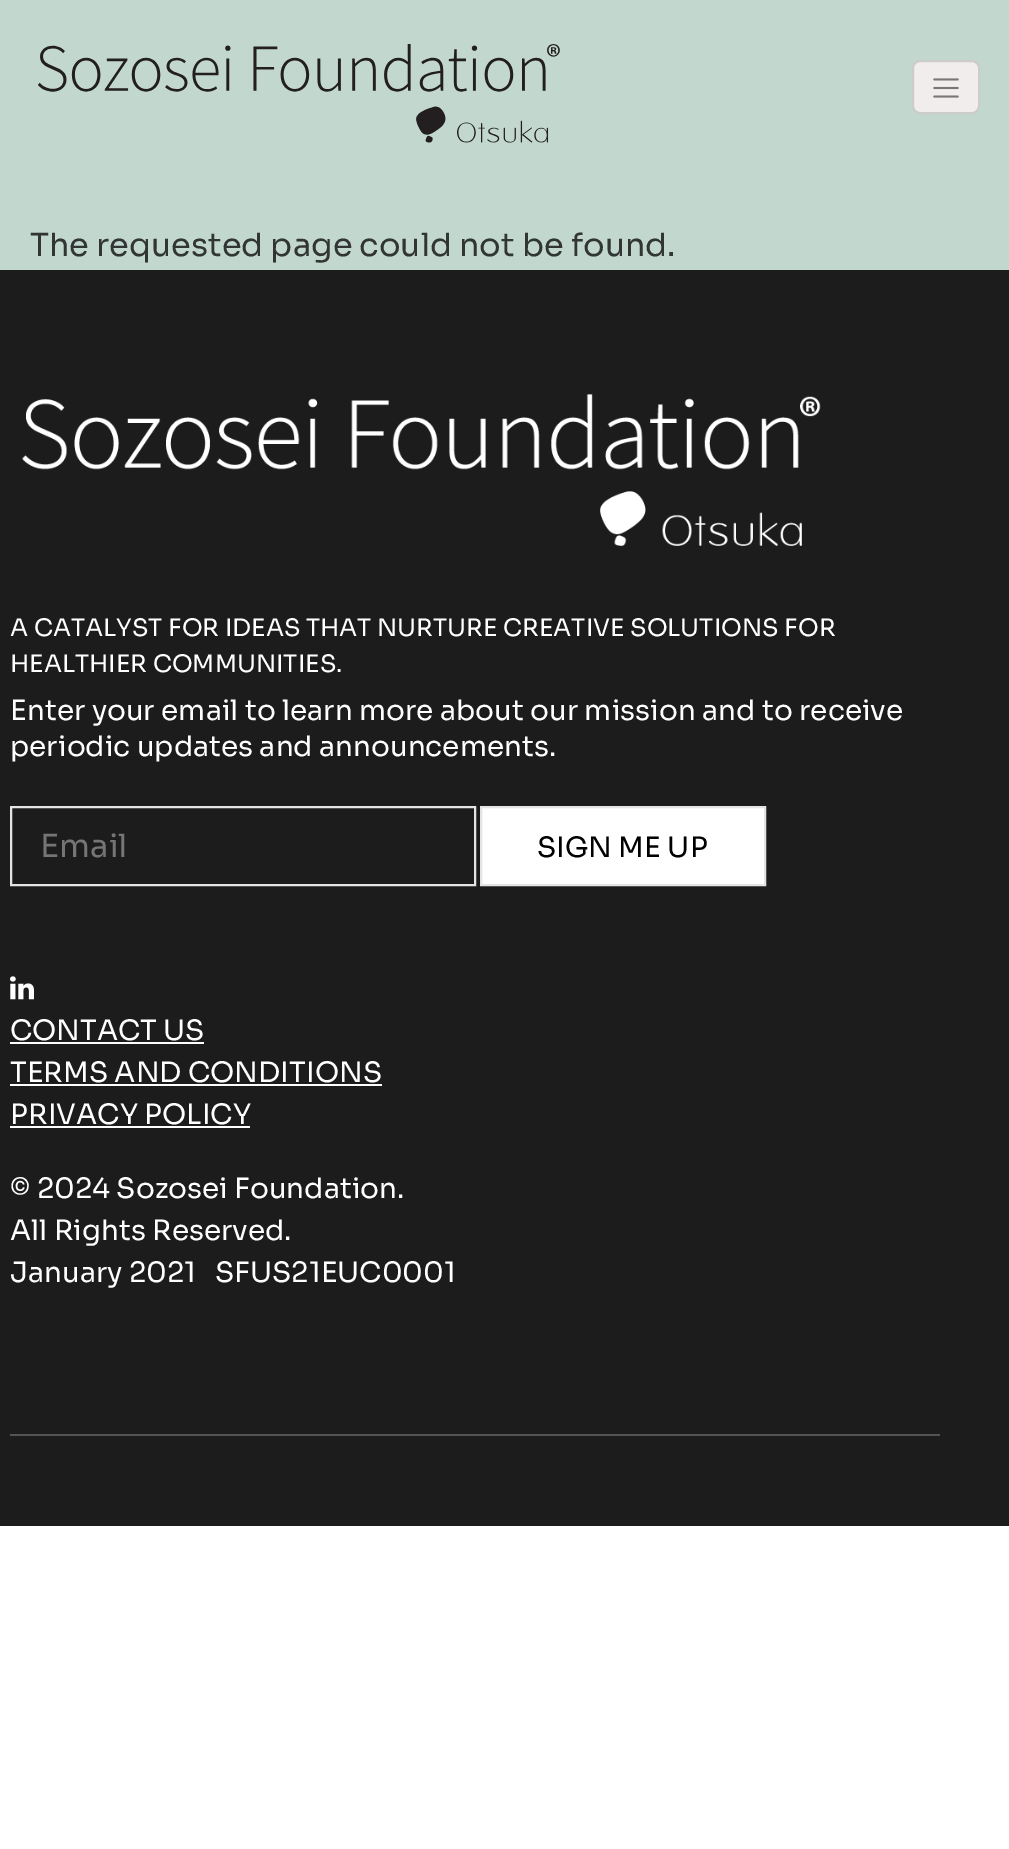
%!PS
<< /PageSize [1009 1849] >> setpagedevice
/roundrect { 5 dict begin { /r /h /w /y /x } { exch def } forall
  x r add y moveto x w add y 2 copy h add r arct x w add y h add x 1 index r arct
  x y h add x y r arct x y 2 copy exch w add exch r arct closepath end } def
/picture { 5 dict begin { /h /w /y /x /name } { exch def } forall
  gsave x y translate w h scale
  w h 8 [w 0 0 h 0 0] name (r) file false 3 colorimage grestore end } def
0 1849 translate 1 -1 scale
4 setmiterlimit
1 setgray
0 0 1009 1849 rectfill
0.761 0.847 0.812 setrgbcolor
0 0 1009 270 rectfill
(img1.rgb) 38 44 522 99 picture
0.949 0.929 0.929 setrgbcolor
913 61 66 52 7 roundrect gsave fill grestore
0.8 setgray
2 setlinewidth
stroke
(img2.rgb) 933 78 26 20 picture
/Sora-Regular [32 0 0 -32 0 0] selectfont
0.192 0.208 0.204 setrgbcolor
30 256 moveto (The requested page could not be found.) show
0.11 setgray
0 270 1009 1256 rectfill
0.325 setgray
10 1434 930 2 rectfill
(img3.rgb) 22 394 799 152 picture
/Sora-Regular [24 0 0 -24 0 0] selectfont
1 setgray
10 636 moveto (A CATALYST FOR IDEAS THAT NURTURE CREATIVE SOLUTIONS FOR) show
10 672 moveto (HEALTHIER COMMUNITIES.) show
/Sora-Regular [28 0 0 -28 0 0] selectfont
10 720 moveto (Enter your email to learn more about our mission and to receive) show
10 756 moveto (periodic updates and announcements.) show
0.894 setgray
11 807 464 78 rectstroke
/Sora-Regular [32 0 0 -32 0 0] selectfont
0.459 setgray
40 857 moveto (Email) show
1 setgray
newpath 481 807 moveto 765 807 lineto 765 885 lineto 481 885 lineto closepath gsave fill grestore
0.894 setgray
stroke
/Sora-Regular [28 0 0 -28 0 0] selectfont
0 setgray
537 857 moveto (SIGN ME UP) show
(img4.rgb) 10 976 24 24 picture
1 setgray
10 1040 moveto (CONTACT US) show
10 1042 194 2 rectfill
10 1082 moveto (TERMS AND CONDITIONS) show
10 1084 372 2 rectfill
10 1124 moveto (PRIVACY POLICY) show
10 1126 240 2 rectfill
10 1198 moveto (© 2024 Sozosei Foundation.) show
10 1240 moveto (All Rights Reserved.) show
10 1282 moveto (January 2021   SFUS21EUC0001) show
showpage
